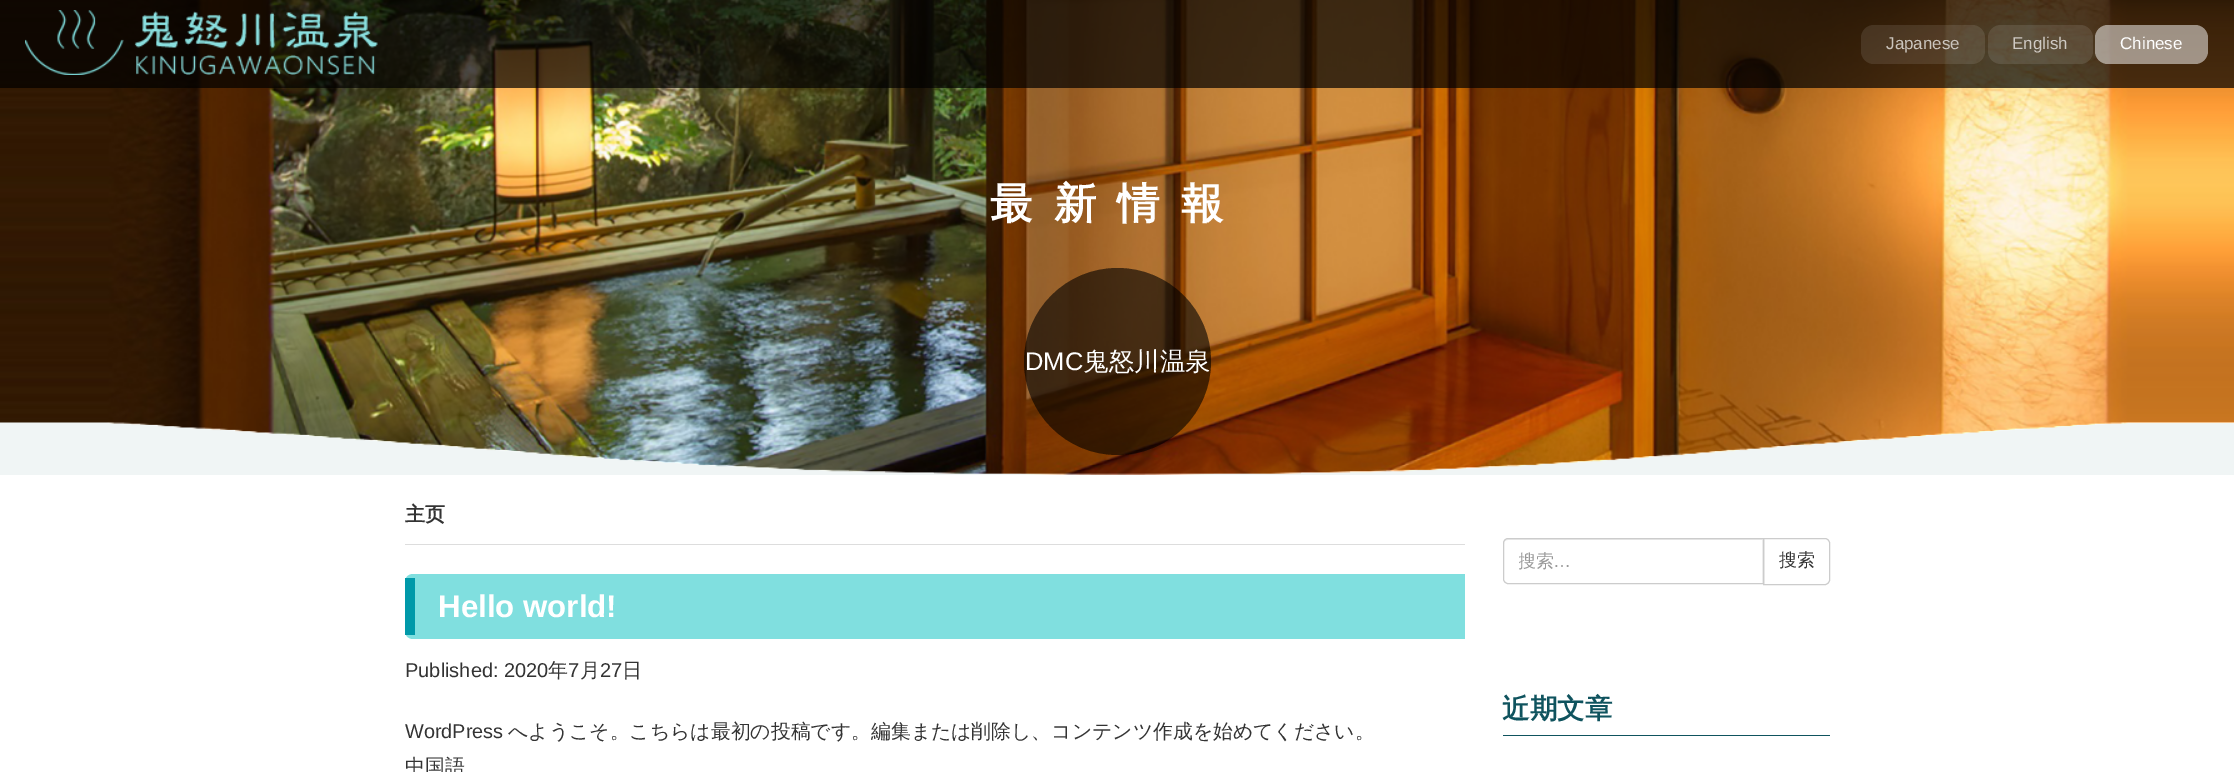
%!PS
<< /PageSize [2234 772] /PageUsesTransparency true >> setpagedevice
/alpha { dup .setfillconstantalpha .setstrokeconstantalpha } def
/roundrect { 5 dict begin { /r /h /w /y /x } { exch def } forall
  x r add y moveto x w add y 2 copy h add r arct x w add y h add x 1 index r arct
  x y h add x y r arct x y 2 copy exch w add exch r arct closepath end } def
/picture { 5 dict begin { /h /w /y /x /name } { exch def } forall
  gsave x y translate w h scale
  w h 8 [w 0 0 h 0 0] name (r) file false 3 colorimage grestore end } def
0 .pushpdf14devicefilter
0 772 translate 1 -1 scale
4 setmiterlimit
1 setgray
0 0 2234 772 rectfill
0.941 0.961 0.961 setrgbcolor
0 422 2234 53 rectfill
(img1.rgb) 0 0 2234 475 picture
0.7 alpha
0 setgray
0 0 2234 88 rectfill
1 alpha
(img2.rgb) 25 10 353 65 picture
0.1 alpha
1 setgray
1861 25 124 39 13 roundrect fill
/LiberationSans-Regular [17 0 0 -17 0 0] selectfont
1 alpha
0.796 0.773 0.745 setrgbcolor
1886 49 moveto (Japanese) show
0.1 alpha
1 setgray
1988 25 105 39 13 roundrect fill
1 alpha
0.812 0.792 0.769 setrgbcolor
2012 49 moveto (English) show
0.5 alpha
1 setgray
2095 25 113 39 13 roundrect fill
1 alpha
2120 49 moveto (Chinese) show
/WenQuanYiZenHei-Bold [42.5 0 0 -42.5 0 0] selectfont
990 218 moveto 21 0 (最新情報) ashow
0.6 alpha
0 setgray
newpath 1117.5 361.5 93.5 0 360 arc closepath fill
/LiberationSans-Regular [25.5 0 0 -25.5 0 0] selectfont
1 alpha
1 setgray
1025 370 moveto (DMC) show
/WenQuanYiZenHei-Medium [25.5 0 0 -25.5 0 0] selectfont
1083 370 moveto (鬼怒川温泉) show
0.867 setgray
405 544 1060 1 rectfill
/WenQuanYiZenHei-Bold [20 0 0 -20 0 0] selectfont
0.2 setgray
405 521 moveto (主页) show
0.502 0.875 0.875 setrgbcolor
newpath 413 574 moveto 1465 574 lineto 1465 639 lineto 413 639 lineto 408.5 639 405 635.5 405 631 curveto 405 582 lineto 405 577.5 408.5 574 413 574 curveto closepath fill
0 0.6 0.663 setrgbcolor
405 578 10 57 rectfill
/LiberationSans-Bold [31.25 0 0 -31.25 0 0] selectfont
1 setgray
438 617 moveto (Hello world!) show
/LiberationSans-Regular [20 0 0 -20 0 0] selectfont
0.2 setgray
405 677 moveto (Published: 2020) show
/WenQuanYiZenHei-Medium [20 0 0 -20 0 0] selectfont
548 677 moveto (年) show
/LiberationSans-Regular [20 0 0 -20 0 0] selectfont
568 677 moveto (7) show
/WenQuanYiZenHei-Medium [20 0 0 -20 0 0] selectfont
580 677 moveto (月) show
/LiberationSans-Regular [20 0 0 -20 0 0] selectfont
600 677 moveto (27) show
/WenQuanYiZenHei-Medium [20 0 0 -20 0 0] selectfont
622 677 moveto (日) show
/LiberationSans-Regular [19.85 0 0 -19.85 0 0] selectfont
405 738 moveto (WordPress) show
/WenQuanYiZenHei-Medium [19.85 0 0 -19.85 0 0] selectfont
508 738 moveto (へようこそ。こちらは最初の投稿です。編集または削除し、コンテンツ作成を始めてください。) show
405 773 moveto (中国語) show
0.8 setgray
newpath 1763.5 538.5 moveto 1825 538.5 lineto 1827.5 538.5 1829.5 540.5 1829.5 543 curveto 1829.5 580 lineto 1829.5 582.5 1827.5 584.5 1825 584.5 curveto 1763.5 584.5 lineto closepath stroke
1 setgray
newpath 1508 538 moveto 1764 538 lineto 1764 584 lineto 1508 584 lineto 1505 584 1503 582 1503 579 curveto 1503 543 lineto 1503 540 1505 538 1508 538 curveto closepath fill
0.925 setgray
newpath 1508 540 moveto 1762 540 lineto 1762 583 lineto 1763 583 lineto 1763 539 lineto 1508 539 lineto 1506 539 1504 541 1504 543 curveto 1504 544 lineto 1504 542 1505 540 1508 540 curveto closepath fill
0.8 setgray
newpath 1508 538.5 moveto 1763.5 538.5 lineto 1763.5 583.5 lineto 1508 583.5 lineto 1505.5 583.5 1503.5 581.5 1503.5 579 curveto 1503.5 543 lineto 1503.5 540.5 1505.5 538.5 1508 538.5 curveto closepath stroke
gsave
1519 551 224 23 rectclip
/WenQuanYiZenHei-Medium [18 0 0 -18 0 0] selectfont
0.6 setgray
1518 567 moveto (搜索) show
grestore
/LiberationSans-Regular [18 0 0 -18 0 0] selectfont
0.6 setgray
1553 567 moveto (…) show
/WenQuanYiZenHei-Medium [18 0 0 -18 0 0] selectfont
0.2 setgray
1779 566 moveto (搜索) show
0.059 0.325 0.369 setrgbcolor
1503 735 327 1 rectfill
/WenQuanYiZenHei-Bold [27.5 0 0 -27.5 0 0] selectfont
1502 718 moveto (近期文章) show
.poppdf14devicefilter showpage
